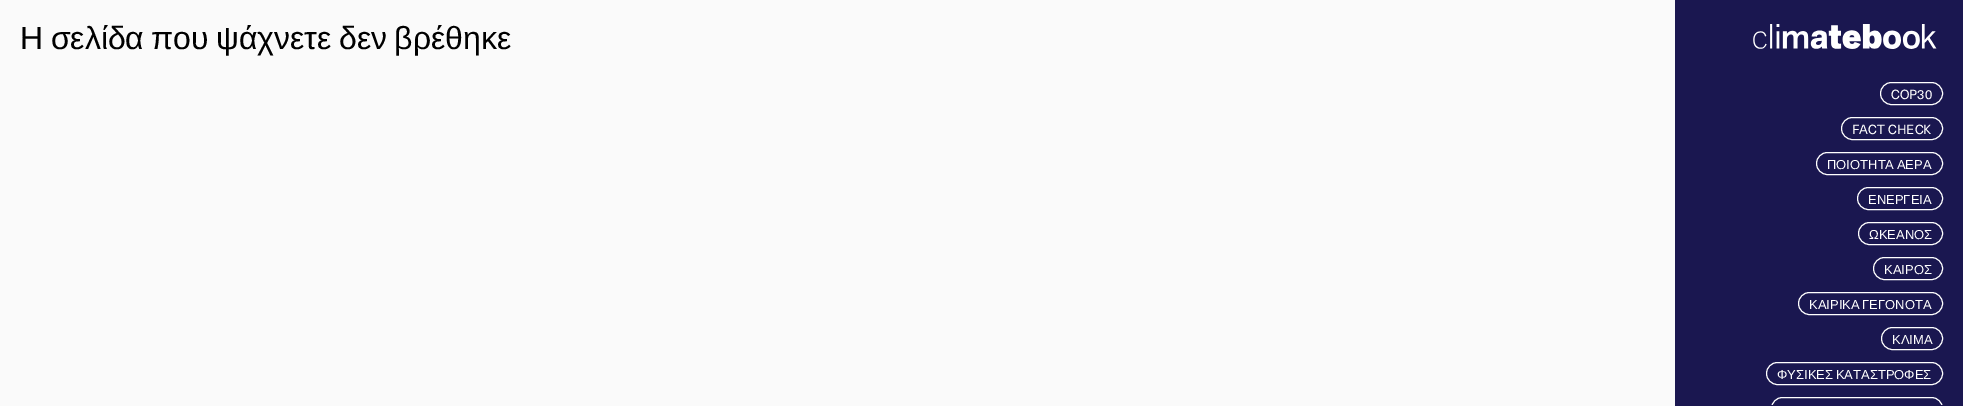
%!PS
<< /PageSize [1963 406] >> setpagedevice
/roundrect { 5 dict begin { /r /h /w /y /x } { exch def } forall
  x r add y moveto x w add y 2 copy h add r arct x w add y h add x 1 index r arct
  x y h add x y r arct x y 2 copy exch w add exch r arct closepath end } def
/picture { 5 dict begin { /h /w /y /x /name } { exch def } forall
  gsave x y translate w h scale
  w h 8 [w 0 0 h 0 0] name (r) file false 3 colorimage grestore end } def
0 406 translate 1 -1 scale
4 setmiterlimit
0.98 setgray
0 0 1963 406 rectfill
/LiberationSans-Regular [32 0 0 -32 0 0] selectfont
0 setgray
20 49 moveto -1.5 0 32 (Η σελίδα που ψάχνετε δεν βρέθηκε) widthshow
0.102 0.09 0.314 setrgbcolor
1675 0 288 406 rectfill
(img1.rgb) 1753 24 184 25 picture
1 setgray
1880.5 82.5 62 22 11 roundrect stroke
/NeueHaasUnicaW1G-Regular [13 0 0 -13 0 0] selectfont
1891 99 moveto (COP30) show
1841.5 117.5 101 22 11 roundrect stroke
1852 134 moveto (FACT CHECK) show
1816.5 152.5 126 22 11 roundrect stroke
/LiberationSans-Regular [13 0 0 -13 0 0] selectfont
1827 169 moveto -1 0 32 (ΠΟΙΟΤΗΤΑ ΑΕΡΑ) widthshow
1857.5 187.5 85 22 11 roundrect stroke
1868 204 moveto (ΕΝΕΡΓΕΙΑ) show
1858.5 222.5 84 22 11 roundrect stroke
1869 239 moveto (ΩΚΕΑΝΟΣ) show
1873.5 257.5 69 22 11 roundrect stroke
1884 274 moveto (ΚΑΙΡΟΣ) show
1798.5 292.5 144 22 11 roundrect stroke
1809 309 moveto -1 0 32 (ΚΑΙΡΙΚΑ ΓΕΓΟΝΟΤΑ) widthshow
1881.5 327.5 61 22 11 roundrect stroke
1892 344 moveto (ΚΛΙΜΑ) show
1766.5 362.5 176 22 11 roundrect stroke
1777 379 moveto -1 0 32 (ΦΥΣΙΚΕΣ ΚΑΤΑΣΤΡΟΦΕΣ) widthshow
gsave
1675 73 288 332 rectclip
1771.5 397.5 171 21 11 roundrect stroke
grestore
showpage
